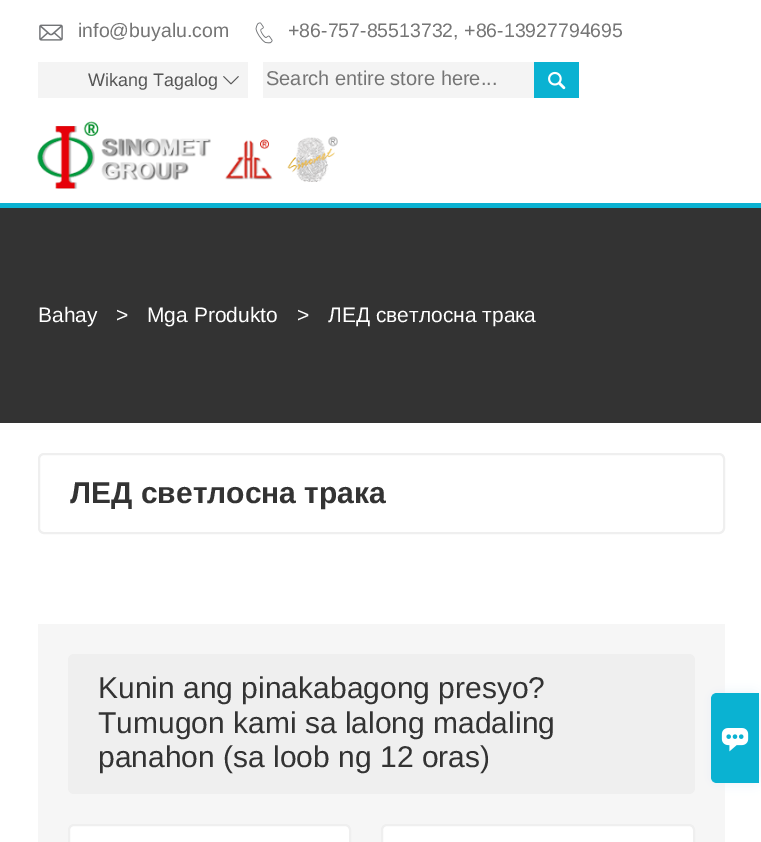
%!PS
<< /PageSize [761 842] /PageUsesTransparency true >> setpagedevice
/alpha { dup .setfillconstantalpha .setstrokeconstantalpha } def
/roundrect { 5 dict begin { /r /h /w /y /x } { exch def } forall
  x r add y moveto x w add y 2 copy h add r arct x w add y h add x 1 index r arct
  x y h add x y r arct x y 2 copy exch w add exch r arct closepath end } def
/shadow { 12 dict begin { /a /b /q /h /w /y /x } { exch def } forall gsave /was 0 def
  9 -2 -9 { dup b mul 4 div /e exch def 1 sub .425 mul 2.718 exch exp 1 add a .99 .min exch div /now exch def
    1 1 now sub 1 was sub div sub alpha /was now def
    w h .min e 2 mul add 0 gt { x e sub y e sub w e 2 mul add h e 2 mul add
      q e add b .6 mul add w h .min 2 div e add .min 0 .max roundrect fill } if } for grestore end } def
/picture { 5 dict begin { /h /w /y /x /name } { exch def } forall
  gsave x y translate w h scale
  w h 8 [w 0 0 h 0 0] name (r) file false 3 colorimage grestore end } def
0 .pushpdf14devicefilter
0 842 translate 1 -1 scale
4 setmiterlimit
1 setgray
0 0 761 842 rectfill
(img1.rgb) 39 24 24 17 picture
/LiberationSans-Regular [19.5 0 0 -19.5 0 0] selectfont
0.459 setgray
78 37 moveto (info@buyalu.com) show
(img2.rgb) 255 22 18 22 picture
288 37 moveto (+86-757-85513732, +86-13927794695) show
0.957 setgray
38 62 210 36 rectfill
/LiberationSans-Regular [18 0 0 -18 0 0] selectfont
0.333 setgray
88 86 moveto (Wikang Tagalog) show
(img3.rgb) 223 76 16 9 picture
0.957 setgray
263 62 271 36 rectfill
/LiberationSans-Regular [20 0 0 -20 0 0] selectfont
0.459 setgray
266 85 moveto (Search entire store here...) show
0.039 0.698 0.824 setrgbcolor
534 62 45 36 rectfill
(img4.rgb) 548 71 18 19 picture
0 203 761 5 rectfill
(img5.rgb) 37 121 301 68 picture
0.2 setgray
0 208 761 215 rectfill
/LiberationSans-Regular [21 0 0 -21 0 0] selectfont
1 setgray
38 322 moveto (Bahay) show
116 322 moveto (>) show
147 322 moveto (Mga Produkto) show
297 322 moveto (>) show
328 322 moveto (ЛЕД светлосна трака) show
0.937 setgray
2 setlinewidth
39 454 685 79 5 roundrect stroke
/LiberationSans-Bold [30 0 0 -30 0 0] selectfont
0.2 setgray
70 503 moveto (ЛЕД светлосна трака) show
0.965 setgray
38 624 687 218 rectfill
0.937 setgray
68 654 627 140 6 roundrect fill
/LiberationSans-Regular [30 0 0 -30 0 0] selectfont
0.2 setgray
98 698 moveto (Kunin ang pinakabagong presyo?) show
98 733 moveto (Tumugon kami sa lalong madaling) show
98 767 moveto (panahon \(sa loob ng 12 oras\)) show
1 setgray
69 825 281 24 5 roundrect gsave fill grestore
0.937 setgray
stroke
1 setgray
382 825 312 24 5 roundrect gsave fill grestore
0.937 setgray
stroke
0.918 0.941 0.965 setrgbcolor
711 693 48 90 6 6 1 shadow
0.039 0.698 0.824 setrgbcolor
newpath 717 693 moveto 759 693 lineto 759 783 lineto 717 783 lineto 713.5 783 711 780.5 711 777 curveto 711 699 lineto 711 695.5 713.5 693 717 693 curveto closepath fill
(img6.rgb) 721 728 28 24 picture
.poppdf14devicefilter showpage
